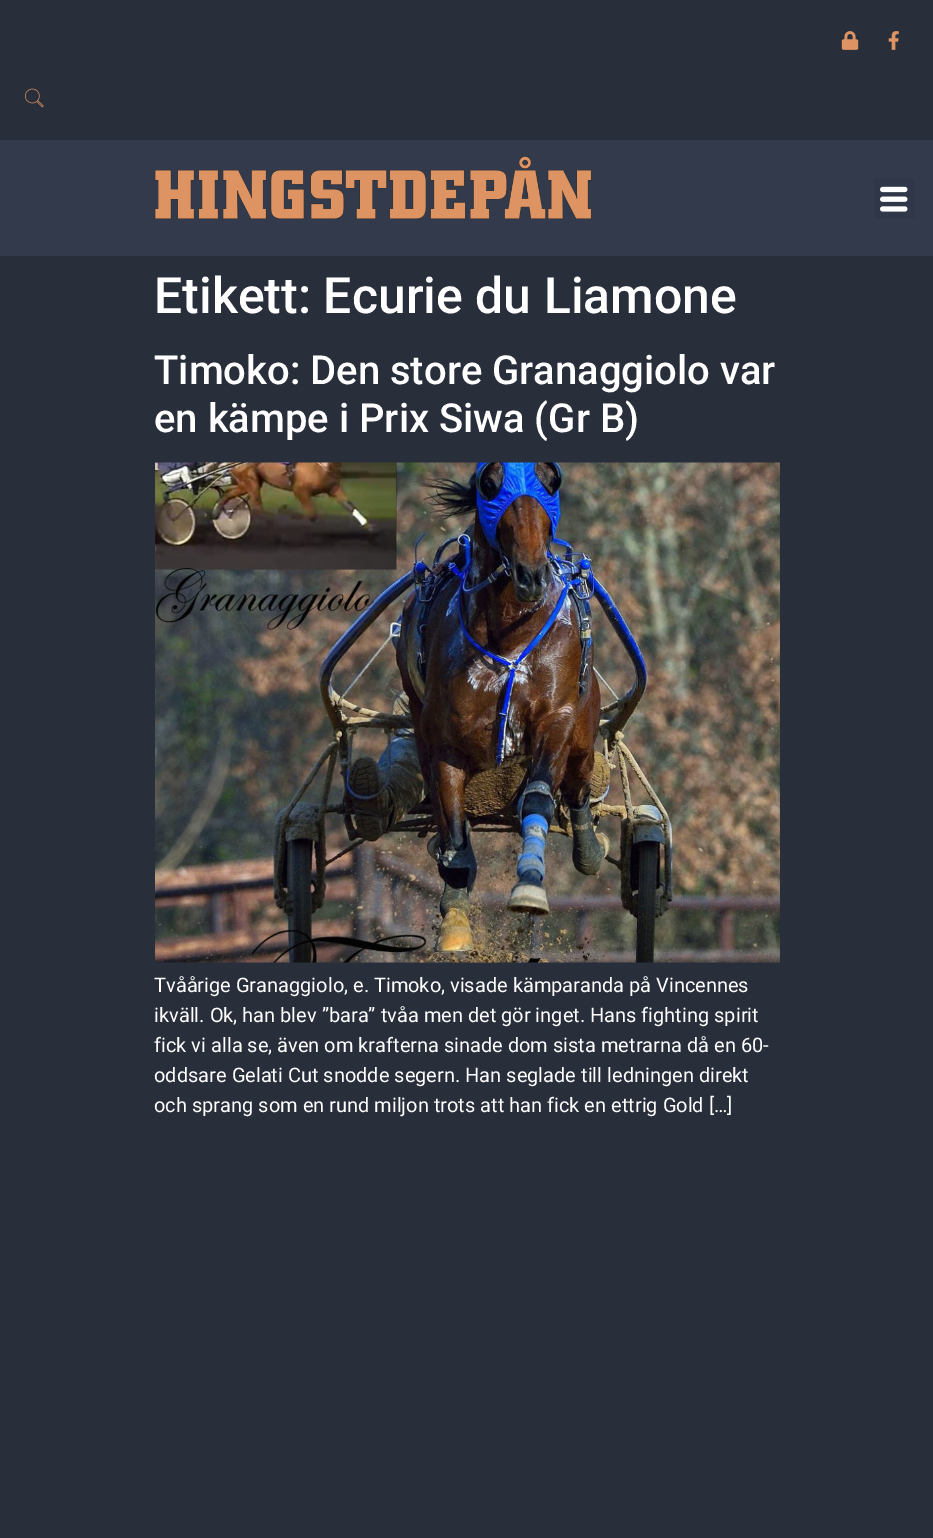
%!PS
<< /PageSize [933 1538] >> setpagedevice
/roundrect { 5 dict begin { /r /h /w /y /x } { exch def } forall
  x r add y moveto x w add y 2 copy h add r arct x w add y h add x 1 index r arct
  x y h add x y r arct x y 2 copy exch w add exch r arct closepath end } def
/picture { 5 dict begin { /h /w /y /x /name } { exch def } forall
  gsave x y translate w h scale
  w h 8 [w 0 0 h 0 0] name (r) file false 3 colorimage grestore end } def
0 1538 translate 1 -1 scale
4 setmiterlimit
0.161 0.18 0.231 setrgbcolor
0 0 933 1538 rectfill
(img1.rgb) 841 31 18 19 picture
(img2.rgb) 888 31 11 19 picture
(img3.rgb) 25 88 19 20 picture
0.2 0.227 0.298 setrgbcolor
0 140 933 116 rectfill
(img4.rgb) 154 156 438 63 picture
0.188 0.216 0.282 setrgbcolor
874 178 41 41 4 roundrect fill
(img5.rgb) 880 186 28 26 picture
/Roboto-Medium [50 0 0 -50 0 0] selectfont
1 setgray
154 313 moveto (Etikett: Ecurie du Liamone) show
/Roboto-Medium [40 0 0 -40 0 0] selectfont
154 384 moveto (Timoko: Den store Granaggiolo var) show
154 432 moveto (en kämpe i Prix Siwa \(Gr B\)) show
(img6.rgb) 155 462 625 501 picture
/Roboto-Regular [20 0 0 -20 0 0] selectfont
154 992 moveto (Tvåårige Granaggiolo, e. Timoko, visade kämparanda på Vincennes) show
154 1022 moveto (ikväll. Ok, han blev ”bara” tvåa men det gör inget. Hans fighting spirit) show
154 1052 moveto (fick vi alla se, även om krafterna sinade dom sista metrarna då en 60-) show
154 1082 moveto (oddsare Gelati Cut snodde segern. Han seglade till ledningen direkt) show
154 1112 moveto (och sprang som en rund miljon trots att han fick en ettrig Gold […]) show
showpage
